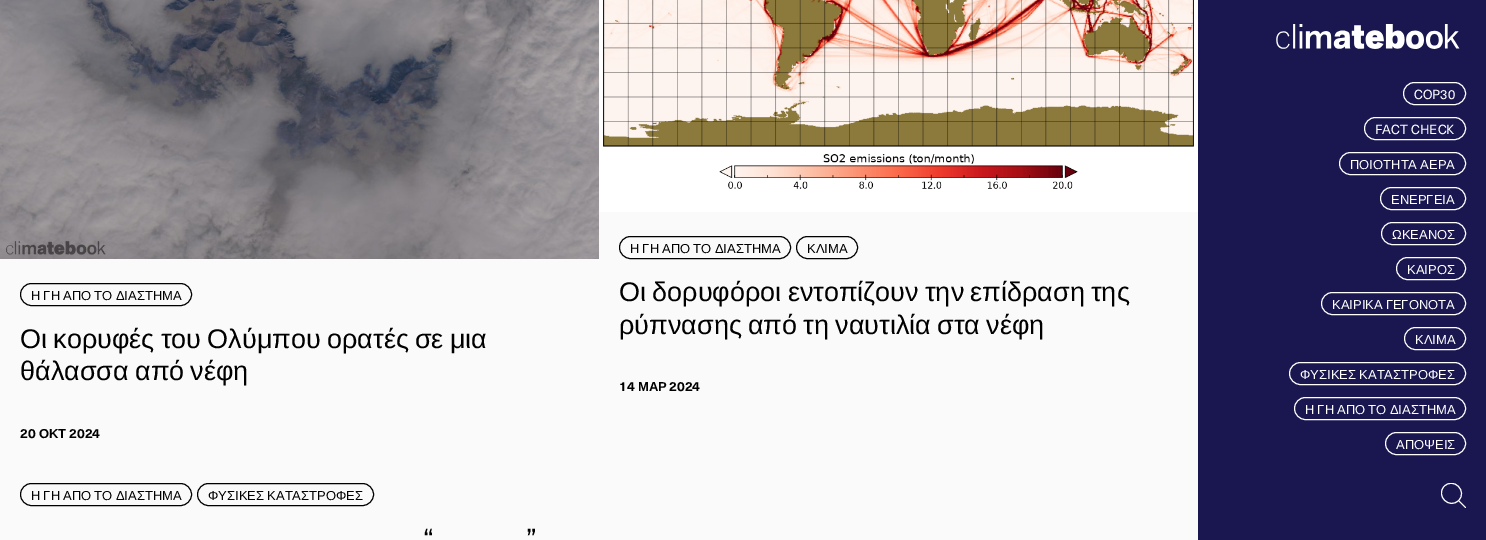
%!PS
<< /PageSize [1486 540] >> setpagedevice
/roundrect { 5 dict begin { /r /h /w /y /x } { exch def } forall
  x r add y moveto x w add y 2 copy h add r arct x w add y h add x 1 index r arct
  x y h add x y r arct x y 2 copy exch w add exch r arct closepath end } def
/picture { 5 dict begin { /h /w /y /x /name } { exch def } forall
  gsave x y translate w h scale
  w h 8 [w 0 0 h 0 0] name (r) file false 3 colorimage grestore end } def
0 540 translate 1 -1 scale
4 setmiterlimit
0.98 setgray
0 0 1486 540 rectfill
(img1.rgb) 0 0 599 259 picture
0 setgray
20.5 283.5 171 22 11 roundrect stroke
/LiberationSans-Regular [13 0 0 -13 0 0] selectfont
31 300 moveto -0.5 0 32 (Η ΓΗ ΑΠΟ ΤΟ ΔΙΑΣΤΗΜΑ) widthshow
/LiberationSans-Regular [27 0 0 -27 0 0] selectfont
20 348 moveto -1.25 0 32 (Οι κορυφές του Ολύμπου ορατές σε μια) widthshow
20 380 moveto -1.25 0 32 (θάλασσα από νέφη) widthshow
/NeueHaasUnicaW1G-Bold [13 0 0 -13 0 0] selectfont
20 438 moveto (20) show
/LiberationSans-Bold [13 0 0 -13 0 0] selectfont
39 438 moveto (ΟΚΤ) show
/NeueHaasUnicaW1G-Bold [13 0 0 -13 0 0] selectfont
69 438 moveto (2024) show
(img2.rgb) 599 0 599 212 picture
619.5 236.5 171 22 11 roundrect stroke
/LiberationSans-Regular [13 0 0 -13 0 0] selectfont
630 253 moveto -0.5 0 32 (Η ΓΗ ΑΠΟ ΤΟ ΔΙΑΣΤΗΜΑ) widthshow
796.5 236.5 61 22 11 roundrect stroke
807 253 moveto (ΚΛΙΜΑ) show
/LiberationSans-Regular [27 0 0 -27 0 0] selectfont
619 301 moveto -1.25 0 32 (Οι δορυφόροι εντοπίζουν την επίδραση της) widthshow
619 334 moveto -1.25 0 32 (ρύπνασης από τη ναυτιλία στα νέφη) widthshow
/NeueHaasUnicaW1G-Bold [13 0 0 -13 0 0] selectfont
619 391 moveto (14) show
/LiberationSans-Bold [13 0 0 -13 0 0] selectfont
638 391 moveto (ΜΑΡ) show
/NeueHaasUnicaW1G-Bold [13 0 0 -13 0 0] selectfont
669 391 moveto (2024) show
20.5 483.5 171 22 11 roundrect stroke
/LiberationSans-Regular [13 0 0 -13 0 0] selectfont
31 500 moveto -0.5 0 32 (Η ΓΗ ΑΠΟ ΤΟ ΔΙΑΣΤΗΜΑ) widthshow
197.5 483.5 176 22 11 roundrect stroke
208 500 moveto -0.5 0 32 (ΦΥΣΙΚΕΣ ΚΑΤΑΣΤΡΟΦΕΣ) widthshow
/NeueHaasUnicaW1G-Regular [27 0 0 -27 0 0] selectfont
423 548 moveto (“) show
526 548 moveto (”) show
0.102 0.09 0.314 setrgbcolor
1198 0 288 540 rectfill
(img3.rgb) 1276 24 184 25 picture
1 setgray
1403.5 82.5 62 22 11 roundrect stroke
/NeueHaasUnicaW1G-Regular [13 0 0 -13 0 0] selectfont
1414 99 moveto (COP30) show
1364.5 117.5 101 22 11 roundrect stroke
1375 134 moveto (FACT CHECK) show
1339.5 152.5 126 22 11 roundrect stroke
/LiberationSans-Regular [13 0 0 -13 0 0] selectfont
1350 169 moveto -0.5 0 32 (ΠΟΙΟΤΗΤΑ ΑΕΡΑ) widthshow
1380.5 187.5 85 22 11 roundrect stroke
1391 204 moveto (ΕΝΕΡΓΕΙΑ) show
1381.5 222.5 84 22 11 roundrect stroke
1392 239 moveto (ΩΚΕΑΝΟΣ) show
1396.5 257.5 69 22 11 roundrect stroke
1407 274 moveto (ΚΑΙΡΟΣ) show
1321.5 292.5 144 22 11 roundrect stroke
1332 309 moveto -0.5 0 32 (ΚΑΙΡΙΚΑ ΓΕΓΟΝΟΤΑ) widthshow
1404.5 327.5 61 22 11 roundrect stroke
1415 344 moveto (ΚΛΙΜΑ) show
1289.5 362.5 176 22 11 roundrect stroke
1300 379 moveto -0.5 0 32 (ΦΥΣΙΚΕΣ ΚΑΤΑΣΤΡΟΦΕΣ) widthshow
1294.5 397.5 171 22 11 roundrect stroke
1305 414 moveto -0.5 0 32 (Η ΓΗ ΑΠΟ ΤΟ ΔΙΑΣΤΗΜΑ) widthshow
1385.5 432.5 80 22 11 roundrect stroke
1396 449 moveto (ΑΠΟΨΕΙΣ) show
gsave
1441 483 25 25 rectclip
newpath 1458.5 500.5 moveto 1449.5 509.5 1435.5 496 1444 486.5 curveto 1453.5 476.5 1468 491.5 1458.5 500.5 curveto 1466 508 lineto closepath stroke
grestore
showpage
